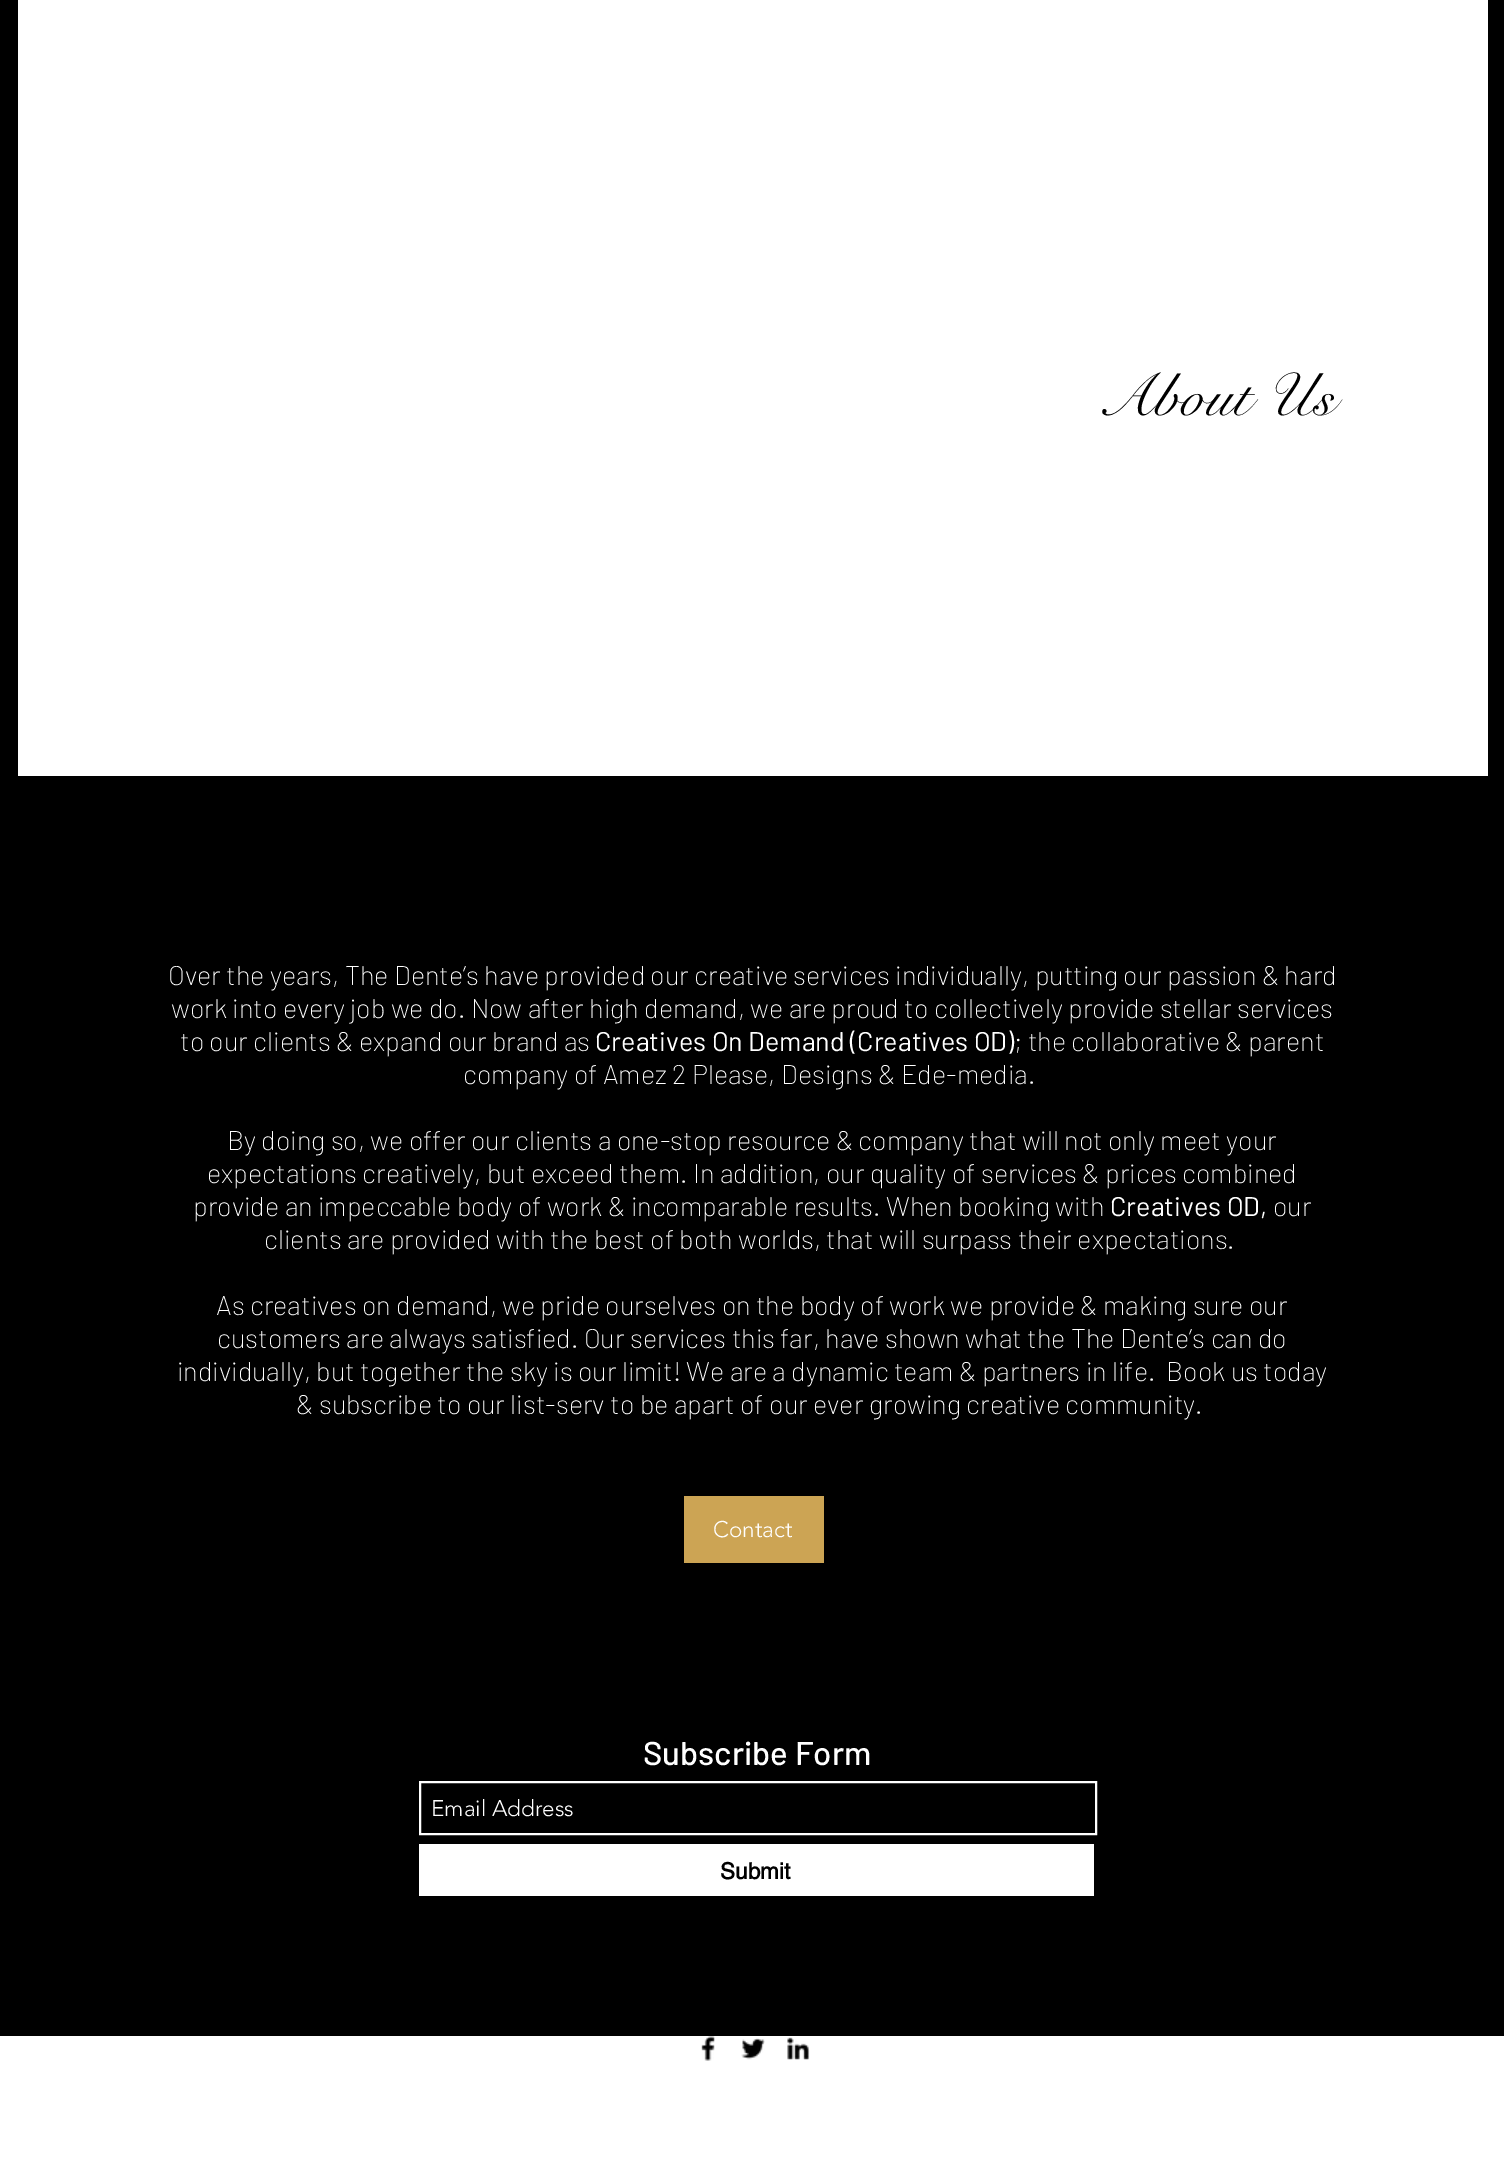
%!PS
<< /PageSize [1504 2165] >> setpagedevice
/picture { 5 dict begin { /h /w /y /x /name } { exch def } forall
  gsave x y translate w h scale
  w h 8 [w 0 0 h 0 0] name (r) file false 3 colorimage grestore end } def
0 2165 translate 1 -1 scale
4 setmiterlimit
1 setgray
0 0 1504 2165 rectfill
0 setgray
0 0 1504 2036 rectfill
1 setgray
18 0 1470 776 rectfill
/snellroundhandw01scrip-Regular [60 0 0 -60 0 0] selectfont
0 setgray
1097 415 moveto (About Us) show
/Barlow-ExtraLight [27 0 0 -27 0 0] selectfont
1 setgray
168 985 moveto (Over the years, The Dente’s have provided our creative services individually, putting our passion & hard) show
171 1018 moveto (work into every job we do. Now after high demand, we are proud to collectively provide stellar services) show
180 1051 moveto (to our clients & expand our brand as) show
/Barlow-Regular [27 0 0 -27 0 0] selectfont
595 1051 moveto (Creatives On Demand \(Creatives OD\)) show
/Barlow-ExtraLight [27 0 0 -27 0 0] selectfont
1014 1051 moveto (; the collaborative & parent) show
463 1084 moveto (company of Amez 2 Please, Designs & Ede-media.) show
227 1150 moveto (By doing so, we offer our clients a one-stop resource & company that will not only meet your) show
207 1183 moveto (expectations creatively, but exceed them. In addition, our quality of services & prices combined) show
193 1216 moveto (provide an impeccable body of work & incomparable results. When booking with) show
/Barlow-Regular [27 0 0 -27 0 0] selectfont
1110 1216 moveto (Creatives OD,) show
/Barlow-ExtraLight [27 0 0 -27 0 0] selectfont
1273 1216 moveto (our) show
264 1249 moveto (clients are provided with the best of both worlds, that will surpass their expectations.) show
216 1315 moveto (As creatives on demand, we pride ourselves on the body of work we provide & making sure our) show
217 1348 moveto (customers are always satisfied. Our services this far, have shown what the The Dente’s can do) show
177 1381 moveto (individually, but together the sky is our limit! We are a dynamic team & partners in life.  Book us today) show
296 1414 moveto (& subscribe to our list-serv to be apart of our ever growing creative community.) show
0.8 0.643 0.329 setrgbcolor
684 1496 140 67 rectfill
/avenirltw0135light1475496-Light [22.5 0 0 -22.5 0 0] selectfont
1 setgray
713 1537 moveto (Contact) show
/Barlow-Medium [33 0 0 -33 0 0] selectfont
643 1765 moveto (Subscribe Form) show
2 setlinewidth
420 1782 676 52 rectstroke
/avenirltw0135light1475496-Light [22.5 0 0 -22.5 0 0] selectfont
431 1816 moveto (Email Address) show
419 1844 675 52 rectfill
/helvetica-Bold [22.5 0 0 -22.5 0 0] selectfont
0 setgray
720 1879 moveto (Submit) show
(img1.rgb) 701 2036 14 25 picture
(img2.rgb) 741 2038 24 22 picture
(img3.rgb) 787 2037 23 23 picture
showpage
